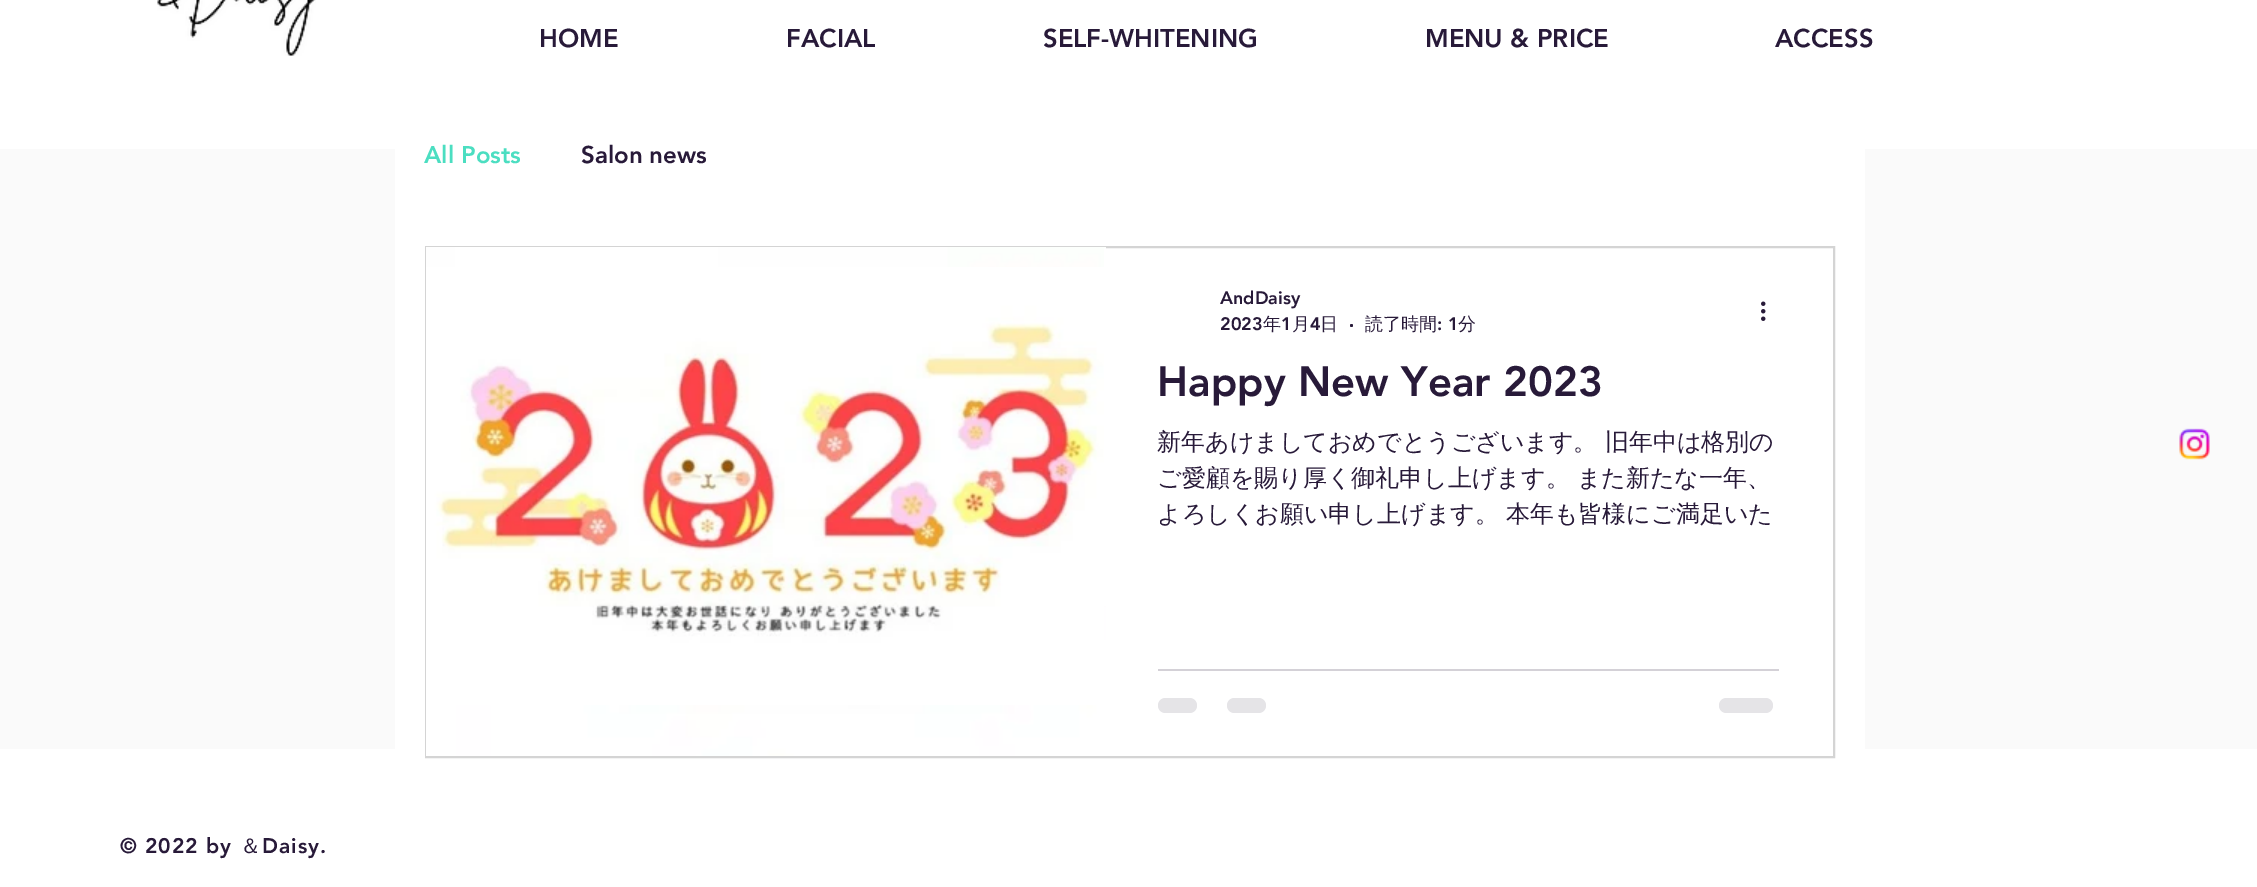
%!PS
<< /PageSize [2257 887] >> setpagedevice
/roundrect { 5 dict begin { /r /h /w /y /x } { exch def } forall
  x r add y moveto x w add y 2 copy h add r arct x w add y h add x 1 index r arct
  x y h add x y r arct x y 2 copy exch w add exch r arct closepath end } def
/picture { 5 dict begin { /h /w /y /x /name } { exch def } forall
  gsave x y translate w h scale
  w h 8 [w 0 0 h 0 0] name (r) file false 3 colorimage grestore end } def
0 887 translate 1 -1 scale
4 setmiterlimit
1 setgray
0 0 2257 887 rectfill
(img1.rgb) 157 0 159 56 picture
/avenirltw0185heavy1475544-Black [25.5 0 0 -25.5 0 0] selectfont
0.157 0.102 0.224 setrgbcolor
539 47 moveto (HOME) show
786 47 moveto (FACIAL) show
1043 47 moveto (SELF-WHITENING) show
1425 47 moveto (MENU & PRICE) show
1775 47 moveto (ACCESS) show
0.98 setgray
0 149 2257 600 rectfill
1 setgray
395 149 1470 600 rectfill
/avenirltw0185heavy1475544-Black [24 0 0 -24 0 0] selectfont
0.294 0.871 0.757 setrgbcolor
424 163 moveto (All Posts) show
0.157 0.102 0.224 setrgbcolor
581 163 moveto (Salon news) show
0.831 setgray
2 setlinewidth
426 247 1408 510 rectstroke
(img2.rgb) 426 247 680 509 picture
(img3.rgb) 426 267 678 438 picture
1 setgray
1104 248 2 358 rectfill
/avenirltw0185heavy1475544-Black [18 0 0 -18 0 0] selectfont
0.157 0.102 0.224 setrgbcolor
1220 304 moveto (AndDaisy) show
1220 330 moveto (2023) show
/WenQuanYiZenHei-Medium [18 0 0 -18 0 0] selectfont
1263 330 moveto (年) show
/avenirltw0185heavy1475544-Black [18 0 0 -18 0 0] selectfont
1281 330 moveto (1) show
/WenQuanYiZenHei-Medium [18 0 0 -18 0 0] selectfont
1292 330 moveto (月) show
/avenirltw0185heavy1475544-Black [18 0 0 -18 0 0] selectfont
1310 330 moveto (4) show
/WenQuanYiZenHei-Medium [18 0 0 -18 0 0] selectfont
1320 330 moveto (日) show
newpath 1351.5 325.5 1.5 0 360 arc closepath fill
1365 330 moveto (読了時間) show
/avenirltw0185heavy1475544-Black [18 0 0 -18 0 0] selectfont
1437 330 moveto (: 1) show
/WenQuanYiZenHei-Medium [18 0 0 -18 0 0] selectfont
1458 330 moveto (分) show
(img4.rgb) 1761 301 5 20 picture
/avenirltw0185heavy1475544-Black [42 0 0 -42 0 0] selectfont
1157 396 moveto (Happy New Year 2023) show
/WenQuanYiZenHei-Medium [24 0 0 -24 0 0] selectfont
1157 450 moveto (新年あけましておめでとうございます。 旧年中は格別の) show
1157 486 moveto (ご愛顧を賜り厚く御礼申し上げます。 また新たな一年、) show
1157 522 moveto (よろしくお願い申し上げます。 本年も皆様にご満足いた) show
0.831 0.82 0.843 setrgbcolor
1158 669 621 2 rectfill
0.898 0.894 0.906 setrgbcolor
1158 698 39 15 7.5 roundrect fill
1227 698 39 15 7.5 roundrect fill
1719 698 54 15 7.5 roundrect fill
(img5.rgb) 2179 428 31 32 picture
/avenirltw0185heavy1475544-Black [21 0 0 -21 0 0] selectfont
0.157 0.102 0.224 setrgbcolor
120 853 moveto 1 0 (© 2022 by) ashow
/WenQuanYiZenHei-Medium [21 0 0 -21 0 0] selectfont
240 853 moveto 1 0 (＆) ashow
/avenirltw0185heavy1475544-Black [21 0 0 -21 0 0] selectfont
262 853 moveto 1 0 (Daisy.) ashow
showpage
